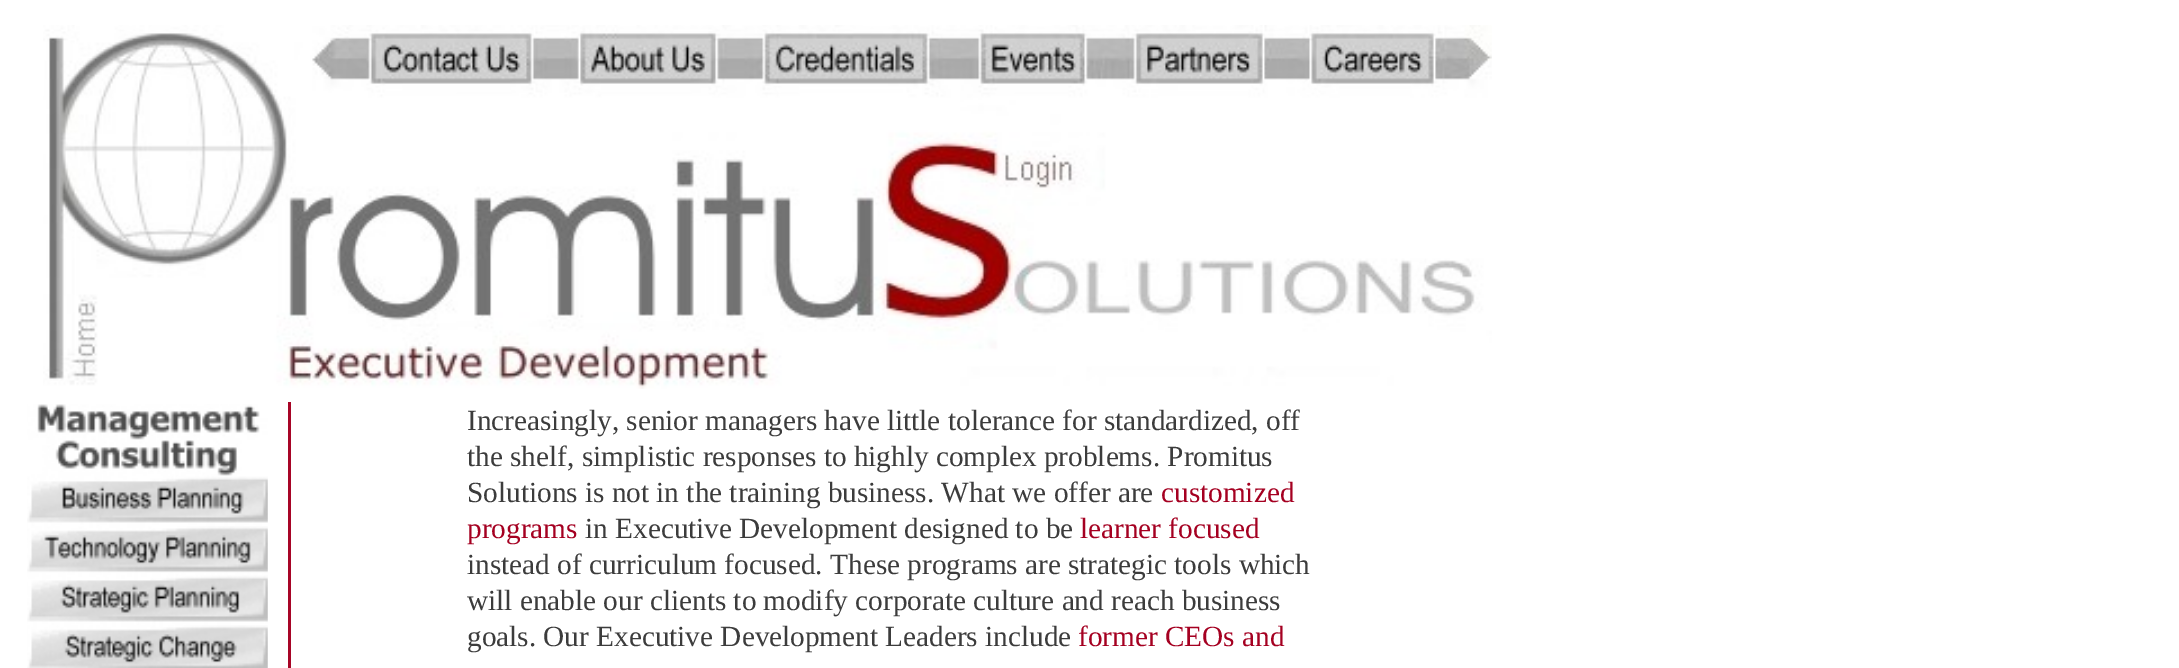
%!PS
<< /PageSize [2179 668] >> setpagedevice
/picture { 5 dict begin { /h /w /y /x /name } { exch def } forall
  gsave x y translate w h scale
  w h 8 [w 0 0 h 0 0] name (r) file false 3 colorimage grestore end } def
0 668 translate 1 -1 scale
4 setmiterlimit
1 setgray
0 0 2179 668 rectfill
(img1.rgb) 43 25 1449 364 picture
(img2.rgb) 27 404 241 264 picture
0.655 0.02 0.149 setrgbcolor
288 402 3 266 rectfill
/LiberationSerif-Regular [29.25 0 0 -29.25 0 0] selectfont
0.235 setgray
467 430 moveto (Increasingly, senior managers have little tolerance for standardized, off) show
467 466 moveto (the shelf, simplistic responses to highly complex problems. Promitus) show
467 502 moveto (Solutions is not in the training business. What we offer are) show
0.647 0 0.129 setrgbcolor
1161 502 moveto (customized) show
467 538 moveto (programs) show
0.235 setgray
585 538 moveto (in Executive Development designed to be) show
0.647 0 0.129 setrgbcolor
1080 538 moveto (learner focused) show
0.235 setgray
467 574 moveto (instead of curriculum focused. These programs are strategic tools which) show
467 610 moveto (will enable our clients to modify corporate culture and reach business) show
467 646 moveto (goals. Our Executive Development Leaders include) show
0.647 0 0.129 setrgbcolor
1078 646 moveto (former CEOs and) show
showpage
